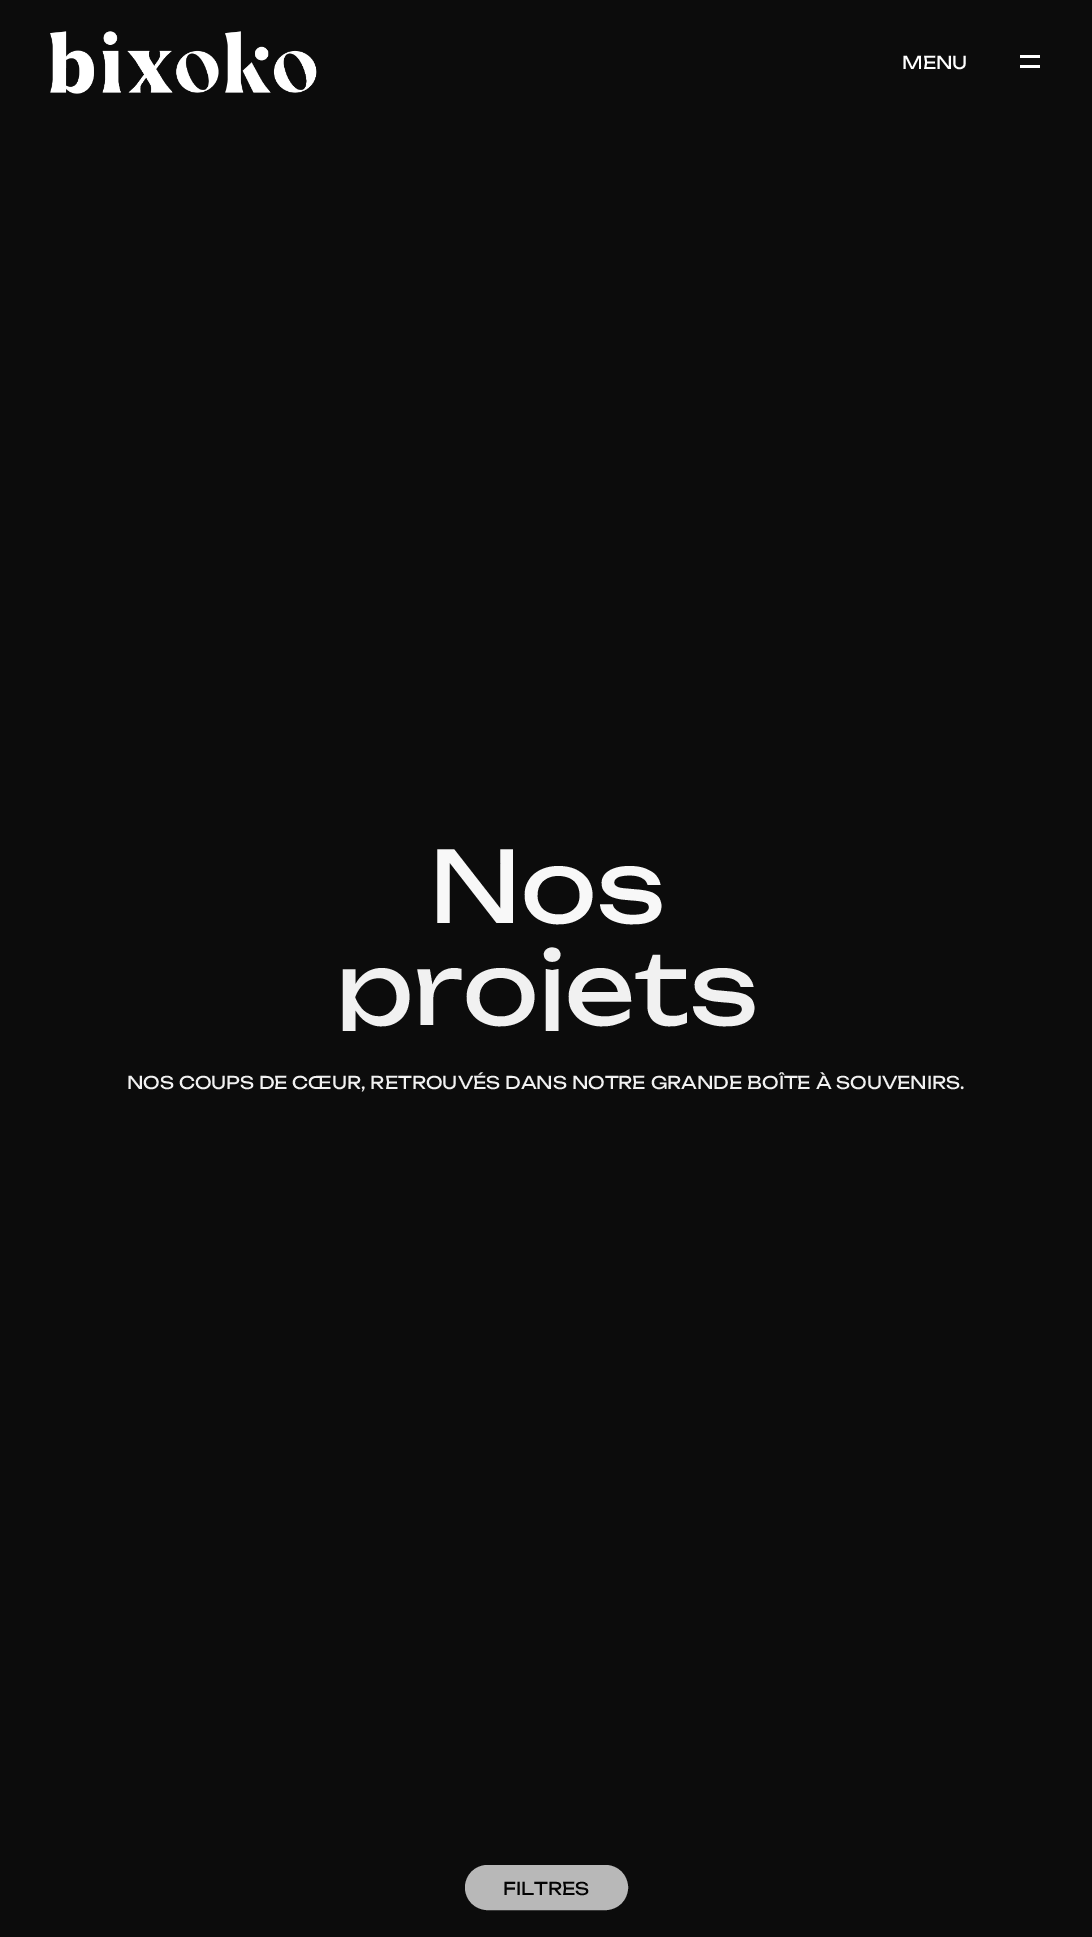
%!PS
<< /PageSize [1092 1937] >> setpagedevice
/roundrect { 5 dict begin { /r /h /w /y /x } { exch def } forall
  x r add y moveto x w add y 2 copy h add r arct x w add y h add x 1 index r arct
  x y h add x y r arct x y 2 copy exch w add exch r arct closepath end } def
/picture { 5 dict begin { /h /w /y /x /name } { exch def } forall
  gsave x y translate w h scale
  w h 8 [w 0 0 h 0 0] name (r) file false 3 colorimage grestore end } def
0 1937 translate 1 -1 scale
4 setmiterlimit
0.047 setgray
0 0 1092 1937 rectfill
(img1.rgb) 50 31 267 63 picture
/Unbounded-Regular [17.5 0 0 -17.5 0 0] selectfont
1 setgray
902 69 moveto (MENU) show
1020 55 20 3 rectfill
1020 65 20 3 rectfill
/Unbounded-Regular [98.5 0 0 -98.5 0 0] selectfont
0.973 setgray
429 923 moveto (Nos) show
gsave
336 933 420 98 rectclip
0.945 setgray
336 1025 moveto (projets) show
grestore
/Unbounded-Regular [17.5 0 0 -17.5 0 0] selectfont
0.945 setgray
127 1089 moveto (NOS COUPS DE CŒUR, RETROUVÉS DANS NOTRE GRANDE BOÎTE À SOUVENIRS.) show
0.722 setgray
467.5 1867.5 158 40 20 roundrect gsave fill grestore
5 setlinewidth
stroke
0.016 setgray
503 1895 moveto (FILTRES) show
showpage
